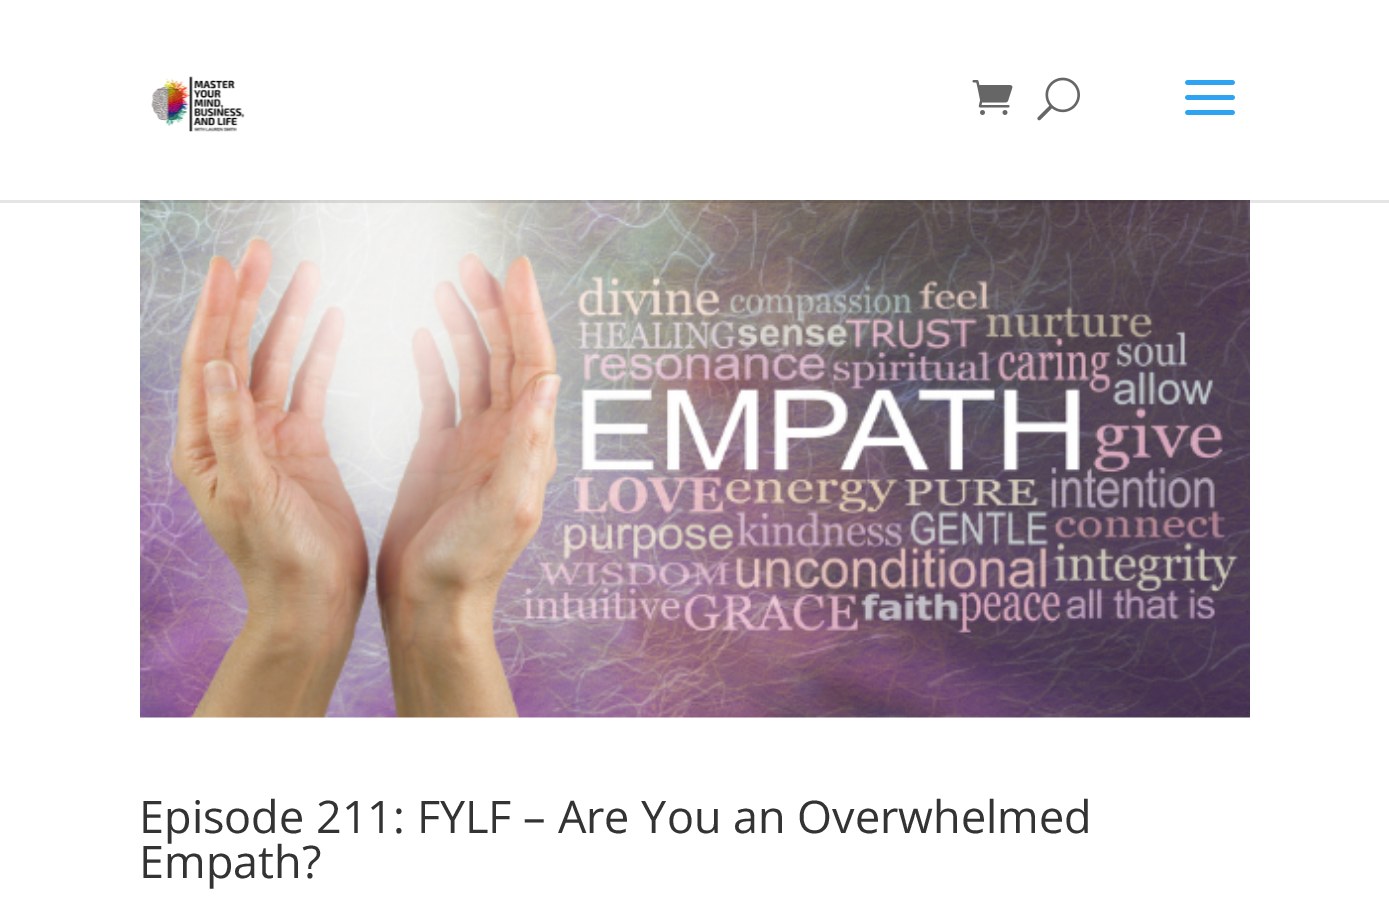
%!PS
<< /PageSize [1389 900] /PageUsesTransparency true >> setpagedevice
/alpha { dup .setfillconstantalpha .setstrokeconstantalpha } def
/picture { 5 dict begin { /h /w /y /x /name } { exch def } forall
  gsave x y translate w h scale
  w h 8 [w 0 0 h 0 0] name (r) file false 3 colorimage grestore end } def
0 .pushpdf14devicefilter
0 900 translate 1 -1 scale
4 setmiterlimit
1 setgray
0 0 1389 900 rectfill
(img5.rgb) 140 200 1110 518 picture
0.1 alpha
0 setgray
0 200 1389 3 rectfill
1 alpha
(img1.rgb) 151 76 94 56 picture
(img2.rgb) 972 80 41 35 picture
(img3.rgb) 1037 77 43 44 picture
(img4.rgb) 1185 80 50 35 picture
/OpenSans-Regular [45 0 0 -45 0 0] selectfont
0.2 setgray
139 833 moveto (Episode 211: FYLF – Are You an Overwhelmed) show
139 878 moveto (Empath?) show
.poppdf14devicefilter showpage
